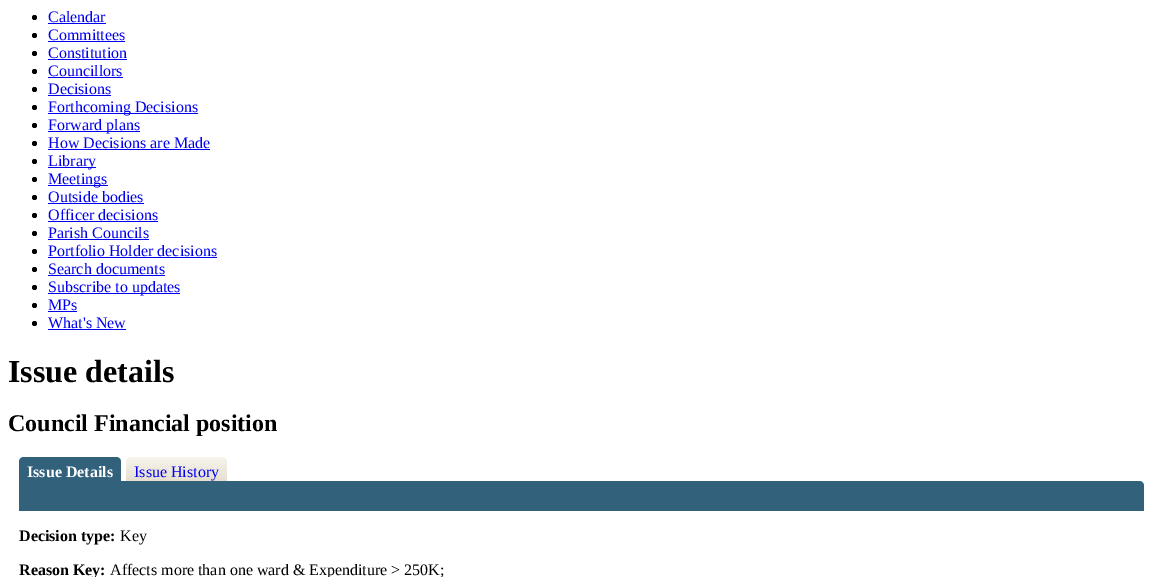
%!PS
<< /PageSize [1152 577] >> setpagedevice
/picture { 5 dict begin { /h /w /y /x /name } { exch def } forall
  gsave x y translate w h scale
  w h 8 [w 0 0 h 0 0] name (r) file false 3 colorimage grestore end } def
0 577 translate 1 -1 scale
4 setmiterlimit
1 setgray
0 0 1152 577 rectfill
0 setgray
newpath 34.5 17.5 2.5 0 360 arc closepath fill
/LiberationSerif-Regular [16 0 0 -16 0 0] selectfont
0 0 0.933 setrgbcolor
48 22 moveto (Calendar) show
48 23 58 1 rectfill
0 setgray
newpath 34.5 35.5 2.5 0 360 arc closepath fill
0 0 0.933 setrgbcolor
48 40 moveto (Committees) show
48 41 77 1 rectfill
0 setgray
newpath 34.5 53.5 2.5 0 360 arc closepath fill
0 0 0.933 setrgbcolor
48 58 moveto (Constitution) show
48 59 79 1 rectfill
0 setgray
newpath 34.5 71.5 2.5 0 360 arc closepath fill
0 0 0.933 setrgbcolor
48 76 moveto (Councillors) show
48 77 75 1 rectfill
0 setgray
newpath 34.5 89.5 2.5 0 360 arc closepath fill
0 0 0.933 setrgbcolor
48 94 moveto (Decisions) show
48 95 63 1 rectfill
0 setgray
newpath 34.5 107.5 2.5 0 360 arc closepath fill
0 0 0.933 setrgbcolor
48 113 150 1 rectfill
48 112 moveto (Forthcoming Decisions) show
0 setgray
newpath 34.5 125.5 2.5 0 360 arc closepath fill
0 0 0.933 setrgbcolor
48 131 92 1 rectfill
48 130 moveto (Forward plans) show
0 setgray
newpath 34.5 143.5 2.5 0 360 arc closepath fill
0 0 0.933 setrgbcolor
48 148 moveto (How Decisions are Made) show
48 149 162 1 rectfill
0 setgray
newpath 34.5 161.5 2.5 0 360 arc closepath fill
0 0 0.933 setrgbcolor
48 167 48 1 rectfill
48 166 moveto (Library) show
0 setgray
newpath 34.5 179.5 2.5 0 360 arc closepath fill
0 0 0.933 setrgbcolor
48 185 60 1 rectfill
48 184 moveto (Meetings) show
0 setgray
newpath 34.5 197.5 2.5 0 360 arc closepath fill
0 0 0.933 setrgbcolor
48 202 moveto (Outside bodies) show
48 203 96 1 rectfill
0 setgray
newpath 34.5 215.5 2.5 0 360 arc closepath fill
0 0 0.933 setrgbcolor
48 220 moveto (Officer decisions) show
48 221 110 1 rectfill
0 setgray
newpath 34.5 233.5 2.5 0 360 arc closepath fill
0 0 0.933 setrgbcolor
48 238 moveto (Parish Councils) show
48 239 101 1 rectfill
0 setgray
newpath 34.5 251.5 2.5 0 360 arc closepath fill
0 0 0.933 setrgbcolor
48 256 moveto (Portfolio Holder decisions) show
48 257 169 1 rectfill
0 setgray
newpath 34.5 269.5 2.5 0 360 arc closepath fill
0 0 0.933 setrgbcolor
48 274 moveto (Search documents) show
48 275 117 1 rectfill
0 setgray
newpath 34.5 287.5 2.5 0 360 arc closepath fill
0 0 0.933 setrgbcolor
48 293 132 1 rectfill
48 292 moveto (Subscribe to updates) show
0 setgray
newpath 34.5 305.5 2.5 0 360 arc closepath fill
0 0 0.933 setrgbcolor
48 310 moveto (MPs) show
48 311 29 1 rectfill
0 setgray
newpath 34.5 323.5 2.5 0 360 arc closepath fill
0 0 0.933 setrgbcolor
48 328 moveto (What's New) show
48 329 78 1 rectfill
/LiberationSerif-Bold [32 0 0 -32 0 0] selectfont
0 setgray
8 382 moveto (Issue details) show
/LiberationSerif-Bold [24 0 0 -24 0 0] selectfont
8 431 moveto (Council Financial position) show
0.192 0.38 0.482 setrgbcolor
newpath 24 457 moveto 116 457 lineto 119 457 121 459 121 462 curveto 121 481 lineto 19 481 lineto 19 462 lineto 19 459 21 457 24 457 curveto closepath fill
/LiberationSerif-Bold [16 0 0 -16 0 0] selectfont
1 setgray
27 477 moveto (Issue Details) show
(img1.rgb) 126 457 101 24 picture
/LiberationSerif-Regular [16 0 0 -16 0 0] selectfont
0 0 0.933 setrgbcolor
134 477 moveto (Issue History) show
0.192 0.38 0.482 setrgbcolor
newpath 19 481 moveto 1139 481 lineto 1142 481 1144 483 1144 486 curveto 1144 511 lineto 19 511 lineto closepath fill
/LiberationSerif-Bold [16 0 0 -16 0 0] selectfont
0 setgray
19 541 moveto (Decision type:) show
/LiberationSerif-Regular [16 0 0 -16 0 0] selectfont
120 541 moveto (Key) show
/LiberationSerif-Bold [16 0 0 -16 0 0] selectfont
19 575 moveto (Reason Key:) show
/LiberationSerif-Regular [16 0 0 -16 0 0] selectfont
110 575 moveto (Affects more than one ward & Expenditure > 250K;) show
showpage
